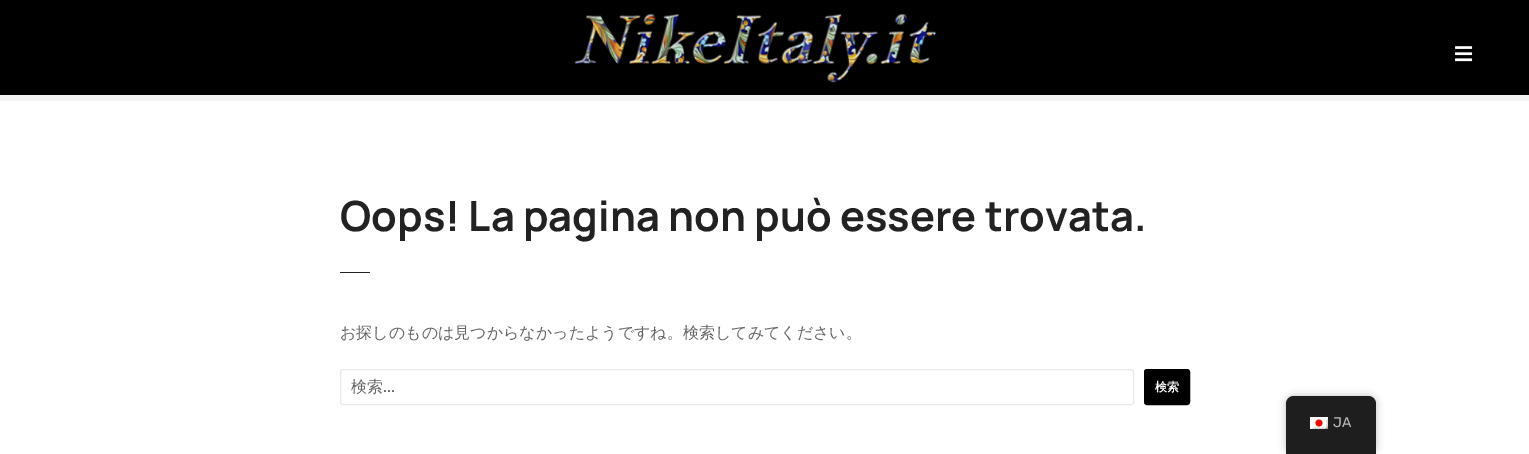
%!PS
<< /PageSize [1529 454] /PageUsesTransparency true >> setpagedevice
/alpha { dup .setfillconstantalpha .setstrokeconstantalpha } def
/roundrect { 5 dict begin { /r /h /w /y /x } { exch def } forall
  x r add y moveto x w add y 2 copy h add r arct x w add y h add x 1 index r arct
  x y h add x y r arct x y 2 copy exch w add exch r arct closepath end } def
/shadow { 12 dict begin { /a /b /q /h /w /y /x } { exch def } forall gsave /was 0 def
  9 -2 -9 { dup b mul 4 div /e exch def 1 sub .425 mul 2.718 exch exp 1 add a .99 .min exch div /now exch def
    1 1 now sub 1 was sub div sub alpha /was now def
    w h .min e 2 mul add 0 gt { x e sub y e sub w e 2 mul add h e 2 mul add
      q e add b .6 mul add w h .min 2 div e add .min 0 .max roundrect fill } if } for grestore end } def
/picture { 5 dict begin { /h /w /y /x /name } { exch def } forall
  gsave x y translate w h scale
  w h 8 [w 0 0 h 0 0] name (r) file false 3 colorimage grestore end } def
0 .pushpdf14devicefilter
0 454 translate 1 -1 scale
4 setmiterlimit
1 setgray
0 0 1529 454 rectfill
0 setgray
0 0 1529 95 rectfill
(img1.rgb) 574 14 362 69 picture
(img2.rgb) 1455 46 18 16 picture
0.949 setgray
0 95 1529 6 rectfill
/Manrope-Bold [41.6 0 0 -41.6 0 0] selectfont
0.133 setgray
340 231 moveto (Oops! La pagina non può essere trovata.) show
340 272 30 1 rectfill
/WenQuanYiZenHei-Medium [16 0 0 -16 0 0] selectfont
0.392 setgray
340 338 moveto (お探しのものは見つからなかったようですね。検索してみてください。) show
0.914 setgray
340.5 369.5 793 35 2.5 roundrect stroke
0.392 setgray
351 392 moveto (検索) show
/Rubik-Regular [16 0 0 -16 0 0] selectfont
383 392 moveto (...) show
0 setgray
1144.5 369.5 45 35 2.5 roundrect gsave fill grestore
stroke
/WenQuanYiZenHei-Bold [12 0 0 -12 0 0] selectfont
1 setgray
1155 391 moveto (検索) show
0 setgray
1286 396 90 58 8 4 0.25 shadow
0.118 setgray
newpath 1294 396 moveto 1368 396 lineto 1372.5 396 1376 399.5 1376 404 curveto 1376 454 lineto 1286 454 lineto 1286 404 lineto 1286 399.5 1289.5 396 1294 396 curveto closepath fill
(img3.rgb) 1310 417 18 12 picture
/Rubik-Regular [14 0 0 -14 0 0] selectfont
0.741 setgray
1333 427 moveto (JA) show
.poppdf14devicefilter showpage
